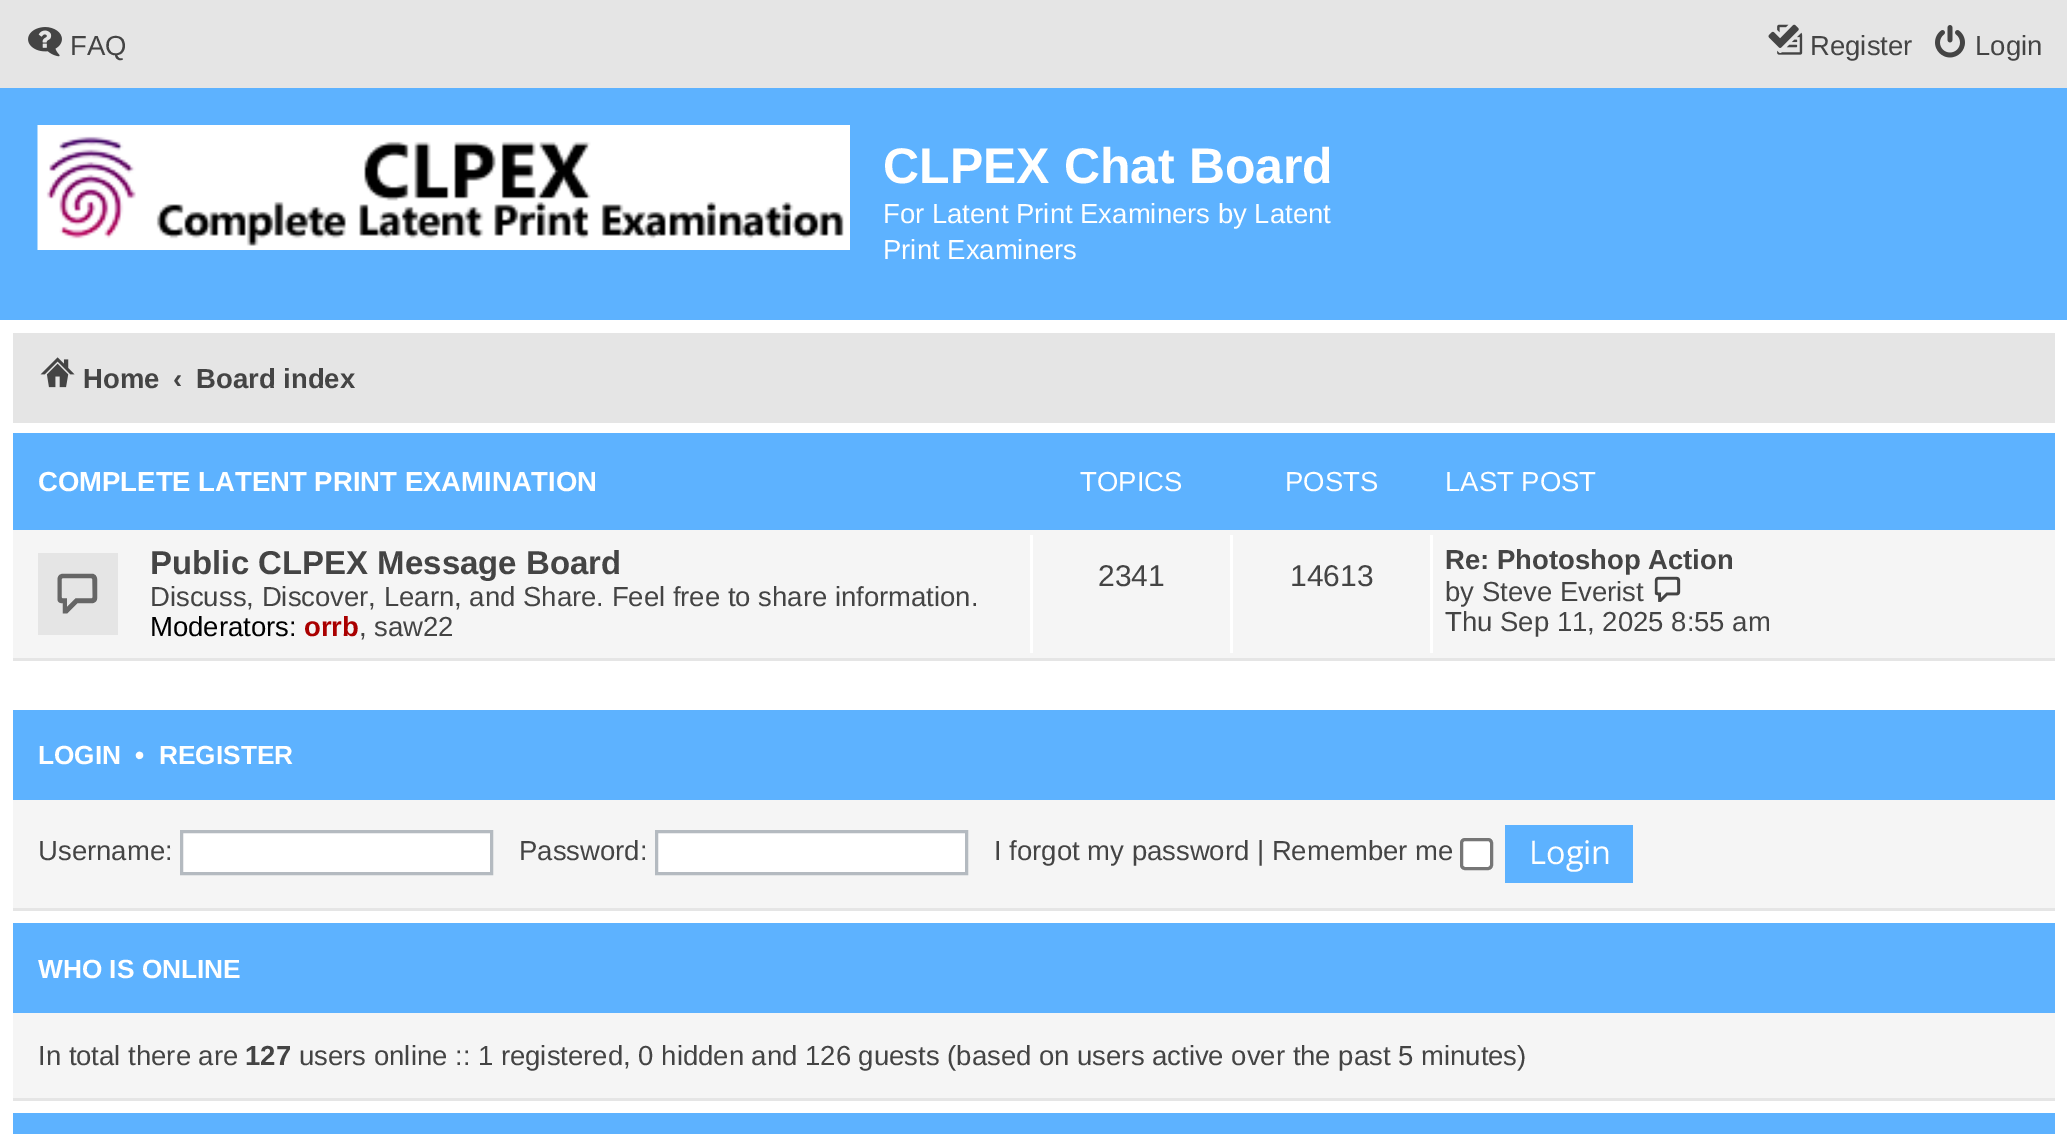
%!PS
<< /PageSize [2067 1134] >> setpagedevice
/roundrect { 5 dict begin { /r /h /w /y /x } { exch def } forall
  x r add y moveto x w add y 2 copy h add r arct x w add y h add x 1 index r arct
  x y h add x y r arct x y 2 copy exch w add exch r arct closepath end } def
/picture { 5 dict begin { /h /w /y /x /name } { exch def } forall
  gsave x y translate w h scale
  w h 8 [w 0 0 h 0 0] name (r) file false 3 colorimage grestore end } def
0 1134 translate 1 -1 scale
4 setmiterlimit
1 setgray
0 0 2067 1134 rectfill
0.898 setgray
0 0 2067 88 rectfill
(img1.rgb) 28 27 34 30 picture
/LiberationSans-Regular [27.5 0 0 -27.5 0 0] selectfont
0.267 setgray
70 55 moveto (FAQ) show
(img2.rgb) 1768 24 35 31 picture
1810 55 moveto (Register) show
(img3.rgb) 1935 25 30 33 picture
1975 55 moveto (Login) show
0.365 0.698 1 setrgbcolor
0 88 2067 232 rectfill
(img4.rgb) 37 125 813 125 picture
/LiberationSans-Bold [50 0 0 -50 0 0] selectfont
1 setgray
883 183 moveto (CLPEX Chat Board) show
/LiberationSans-Regular [27.5 0 0 -27.5 0 0] selectfont
883 223 moveto (For Latent Print Examiners by Latent) show
883 259 moveto (Print Examiners) show
0.898 setgray
13 333 2042 90 rectfill
(img5.rgb) 40 357 35 31 picture
/LiberationSans-Bold [27.5 0 0 -27.5 0 0] selectfont
0.267 setgray
83 388 moveto (Home) show
173 388 moveto (‹) show
196 388 moveto (Board index) show
0.365 0.698 1 setrgbcolor
13 433 2042 97 rectfill
1 setgray
38 491 moveto (COMPLETE LATENT PRINT EXAMINATION) show
/LiberationSans-Regular [27.5 0 0 -27.5 0 0] selectfont
1080 491 moveto (TOPICS) show
1285 491 moveto (POSTS) show
1445 491 moveto (LAST POST) show
0.961 setgray
13 530 2042 128 rectfill
0.898 setgray
13 658 2042 3 rectfill
38 553 80 82 rectfill
(img6.rgb) 57 573 41 41 picture
/LiberationSans-Bold [33 0 0 -33 0 0] selectfont
0.267 setgray
150 574 moveto (Public CLPEX Message Board) show
/LiberationSans-Regular [27.5 0 0 -27.5 0 0] selectfont
150 606 moveto (Discuss, Discover, Learn, and Share. Feel free to share information.) show
0 setgray
150 636 moveto (Moderators:) show
/LiberationSans-Bold [27.5 0 0 -27.5 0 0] selectfont
0.667 0 0 setrgbcolor
304 636 moveto (orrb) show
/LiberationSans-Regular [27.5 0 0 -27.5 0 0] selectfont
0.267 setgray
359 636 moveto (, saw22) show
1 setgray
1030 535 3 118 rectfill
/LiberationSans-Regular [30 0 0 -30 0 0] selectfont
0.267 setgray
1098 586 moveto (2341) show
1 setgray
1230 535 3 118 rectfill
0.267 setgray
1290 586 moveto (14613) show
1 setgray
1430 535 3 118 rectfill
/LiberationSans-Bold [27.5 0 0 -27.5 0 0] selectfont
0.267 setgray
1445 569 moveto (Re: Photoshop Action) show
/LiberationSans-Regular [27.5 0 0 -27.5 0 0] selectfont
1445 601 moveto (by Steve Everist) show
(img7.rgb) 1654 576 27 26 picture
1445 631 moveto (Thu Sep 11, 2025 8:55 am) show
0.365 0.698 1 setrgbcolor
13 710 2042 90 rectfill
/LiberationSans-Bold [26.25 0 0 -26.25 0 0] selectfont
1 setgray
38 764 moveto (LOGIN) show
135 764 moveto (•) show
159 764 moveto (REGISTER) show
0.961 setgray
13 800 2042 108 rectfill
0.898 setgray
13 908 2042 3 rectfill
/LiberationSans-Regular [27.5 0 0 -27.5 0 0] selectfont
0.267 setgray
38 860 moveto (Username:) show
1 setgray
newpath 181.5 831.5 moveto 491.5 831.5 lineto 491.5 873.5 lineto 181.5 873.5 lineto closepath gsave fill grestore
0.706 0.729 0.753 setrgbcolor
3 setlinewidth
stroke
0.267 setgray
519 860 moveto (Password:) show
1 setgray
newpath 656.5 831.5 moveto 966.5 831.5 lineto 966.5 873.5 lineto 656.5 873.5 lineto closepath gsave fill grestore
0.706 0.729 0.753 setrgbcolor
stroke
0.267 setgray
994 860 moveto (I forgot my password | Remember me) show
1 setgray
1461.5 839.5 30 29 3.5 roundrect gsave fill grestore
0.463 setgray
stroke
0.365 0.698 1 setrgbcolor
1505 825 128 58 rectfill
/OpenSans-Regular [32.5 0 0 -32.5 0 0] selectfont
1 setgray
1529 864 moveto (Login) show
0.365 0.698 1 setrgbcolor
13 923 2042 90 rectfill
/LiberationSans-Bold [26.25 0 0 -26.25 0 0] selectfont
1 setgray
38 978 moveto (WHO IS ONLINE) show
0.961 setgray
13 1013 2042 85 rectfill
0.898 setgray
13 1098 2042 3 rectfill
/LiberationSans-Regular [27.5 0 0 -27.5 0 0] selectfont
0.267 setgray
38 1065 moveto (In total there are) show
/LiberationSans-Bold [27.5 0 0 -27.5 0 0] selectfont
245 1065 moveto (127) show
/LiberationSans-Regular [27.5 0 0 -27.5 0 0] selectfont
299 1065 moveto (users online :: 1 registered, 0 hidden and 126 guests \(based on users active over the past 5 minutes\)) show
0.365 0.698 1 setrgbcolor
13 1113 2042 21 rectfill
showpage
